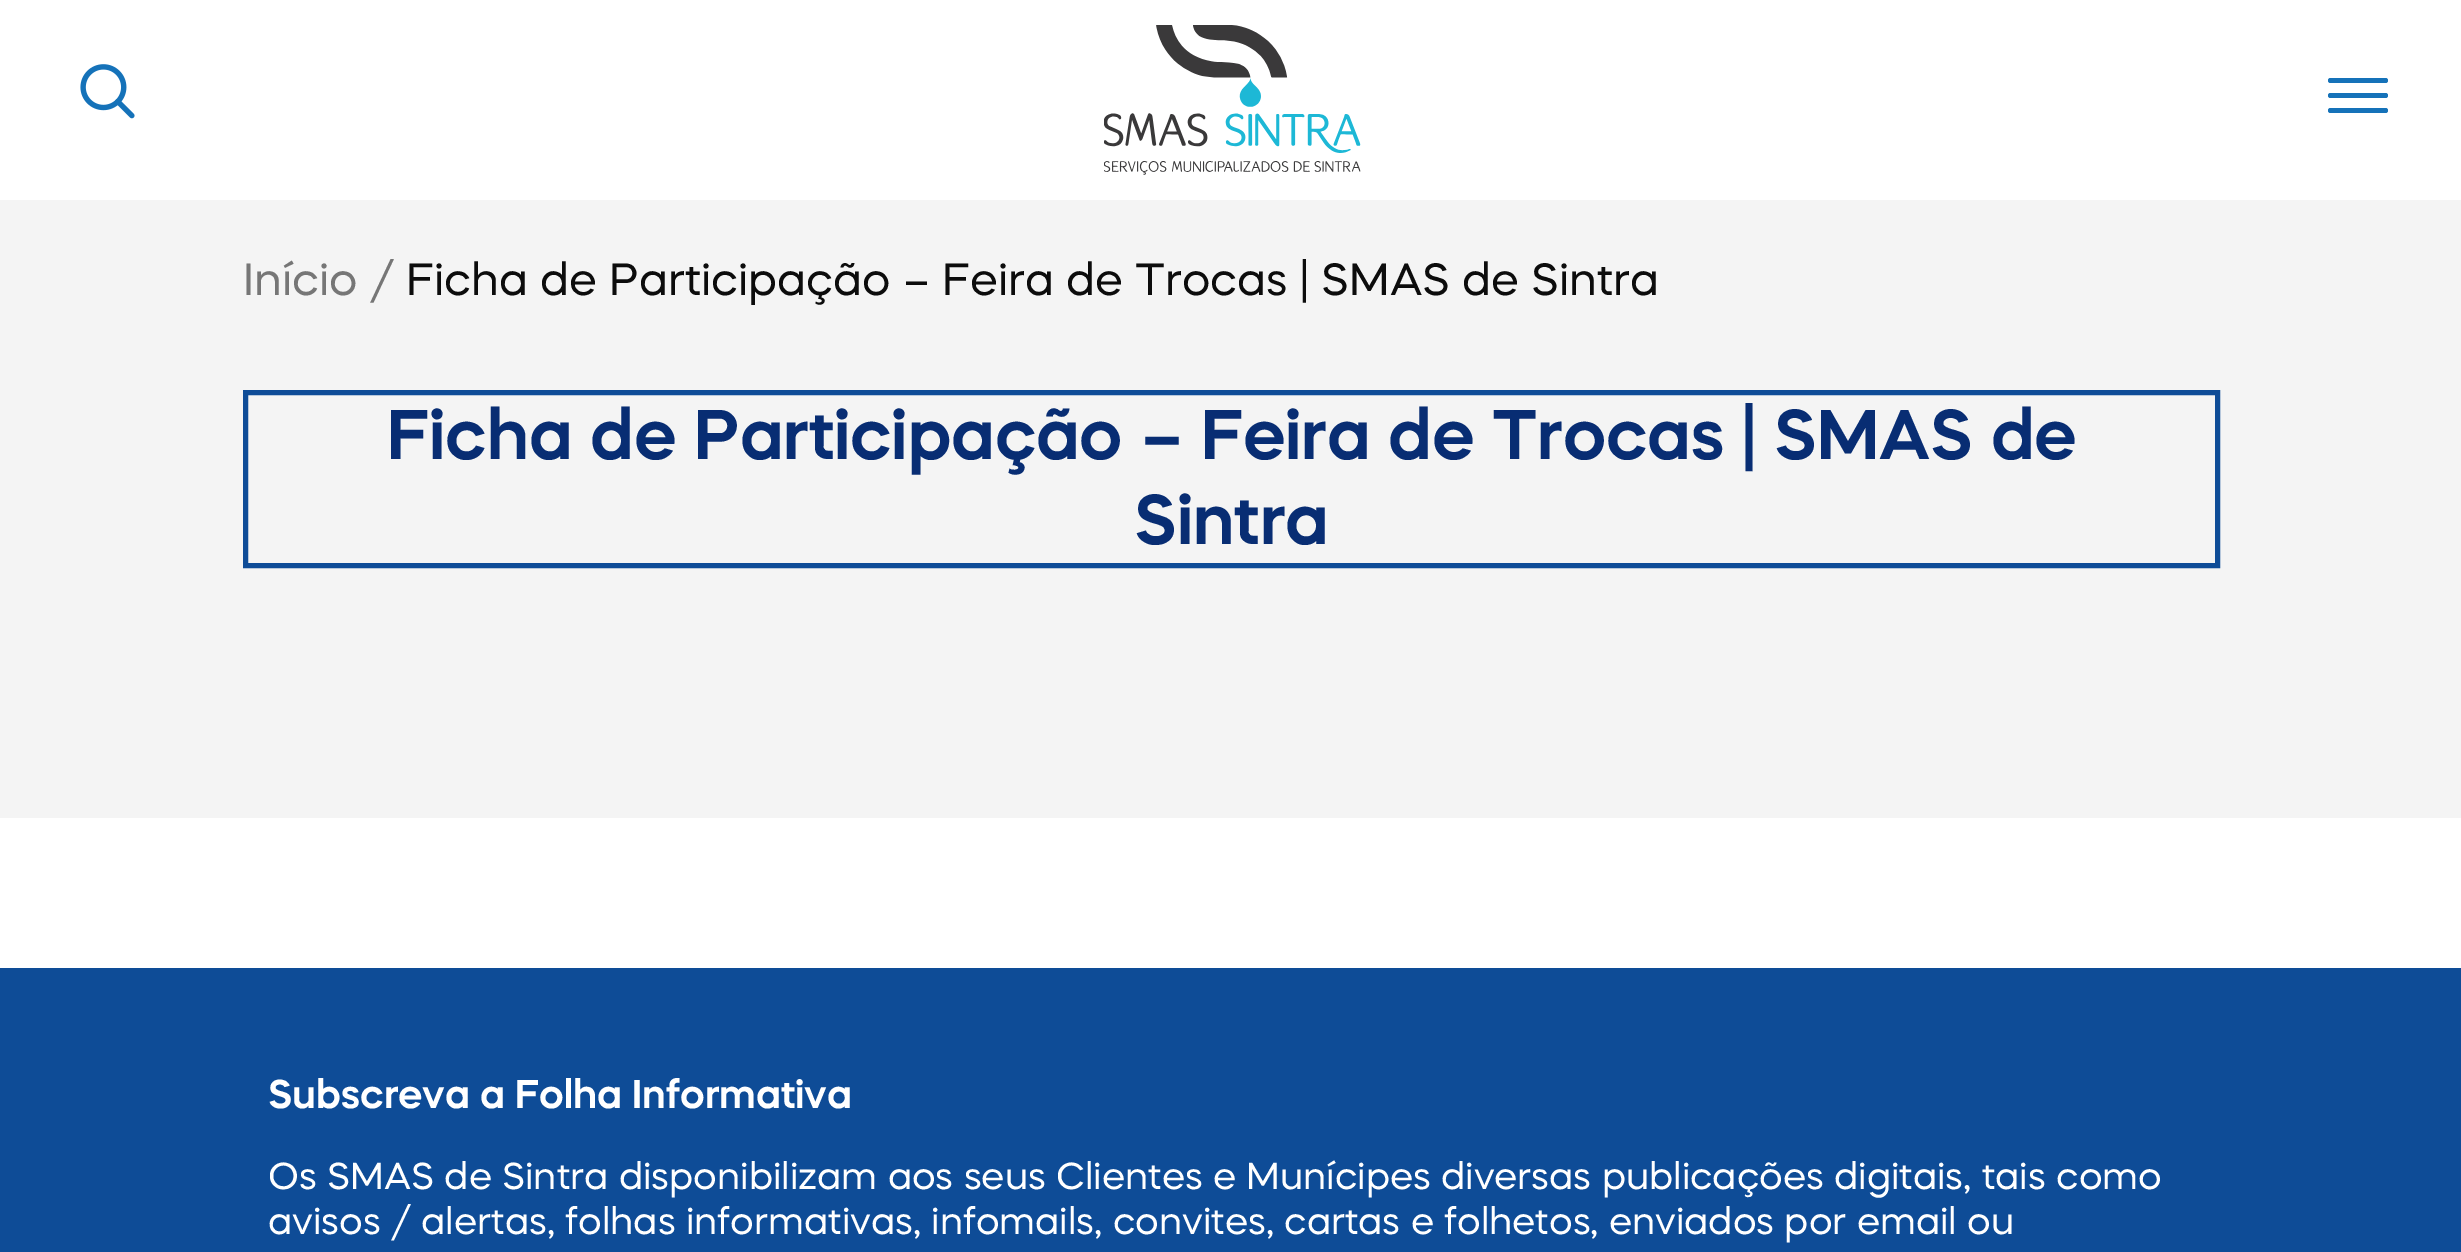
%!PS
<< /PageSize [2461 1252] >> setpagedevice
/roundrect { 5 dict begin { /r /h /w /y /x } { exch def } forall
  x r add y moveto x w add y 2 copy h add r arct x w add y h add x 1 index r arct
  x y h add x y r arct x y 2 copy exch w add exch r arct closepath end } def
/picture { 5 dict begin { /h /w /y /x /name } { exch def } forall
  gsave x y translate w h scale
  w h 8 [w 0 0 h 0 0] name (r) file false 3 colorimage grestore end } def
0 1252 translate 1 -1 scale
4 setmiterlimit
1 setgray
0 0 2461 1252 rectfill
(img1.rgb) 80 64 55 55 picture
(img2.rgb) 1104 25 257 150 picture
0.082 0.447 0.725 setrgbcolor
2328 93 60 5 2.5 roundrect fill
2328 78 60 5 2.5 roundrect fill
2328 108 60 5 2.5 roundrect fill
0.957 setgray
0 200 2461 618 rectfill
/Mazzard-Regular [45 0 0 -45 0 0] selectfont
0.463 setgray
243 295 moveto (Início /) show
0.047 setgray
406 295 moveto (Ficha de Participação – Feira de Trocas | SMAS de Sintra) show
0.055 0.298 0.592 setrgbcolor
5 setlinewidth
245.5 392.5 1972 173 rectstroke
/Mazzard-SemiBold [70 0 0 -70 0 0] selectfont
0.031 0.176 0.451 setrgbcolor
387 459 moveto (Ficha de Participação – Feira de Trocas | SMAS de) show
1134 544 moveto (Sintra) show
0.055 0.298 0.592 setrgbcolor
0 968 2461 284 rectfill
/Mazzard-SemiBold [40 0 0 -40 0 0] selectfont
1 setgray
268 1108 moveto (Subscreva a Folha Informativa) show
/Mazzard-Regular [37.5 0 0 -37.5 0 0] selectfont
268 1189 moveto (Os SMAS de Sintra disponibilizam aos seus Clientes e Munícipes diversas publicações digitais, tais como) show
268 1234 moveto (avisos / alertas, folhas informativas, infomails, convites, cartas e folhetos, enviados por email ou) show
showpage
